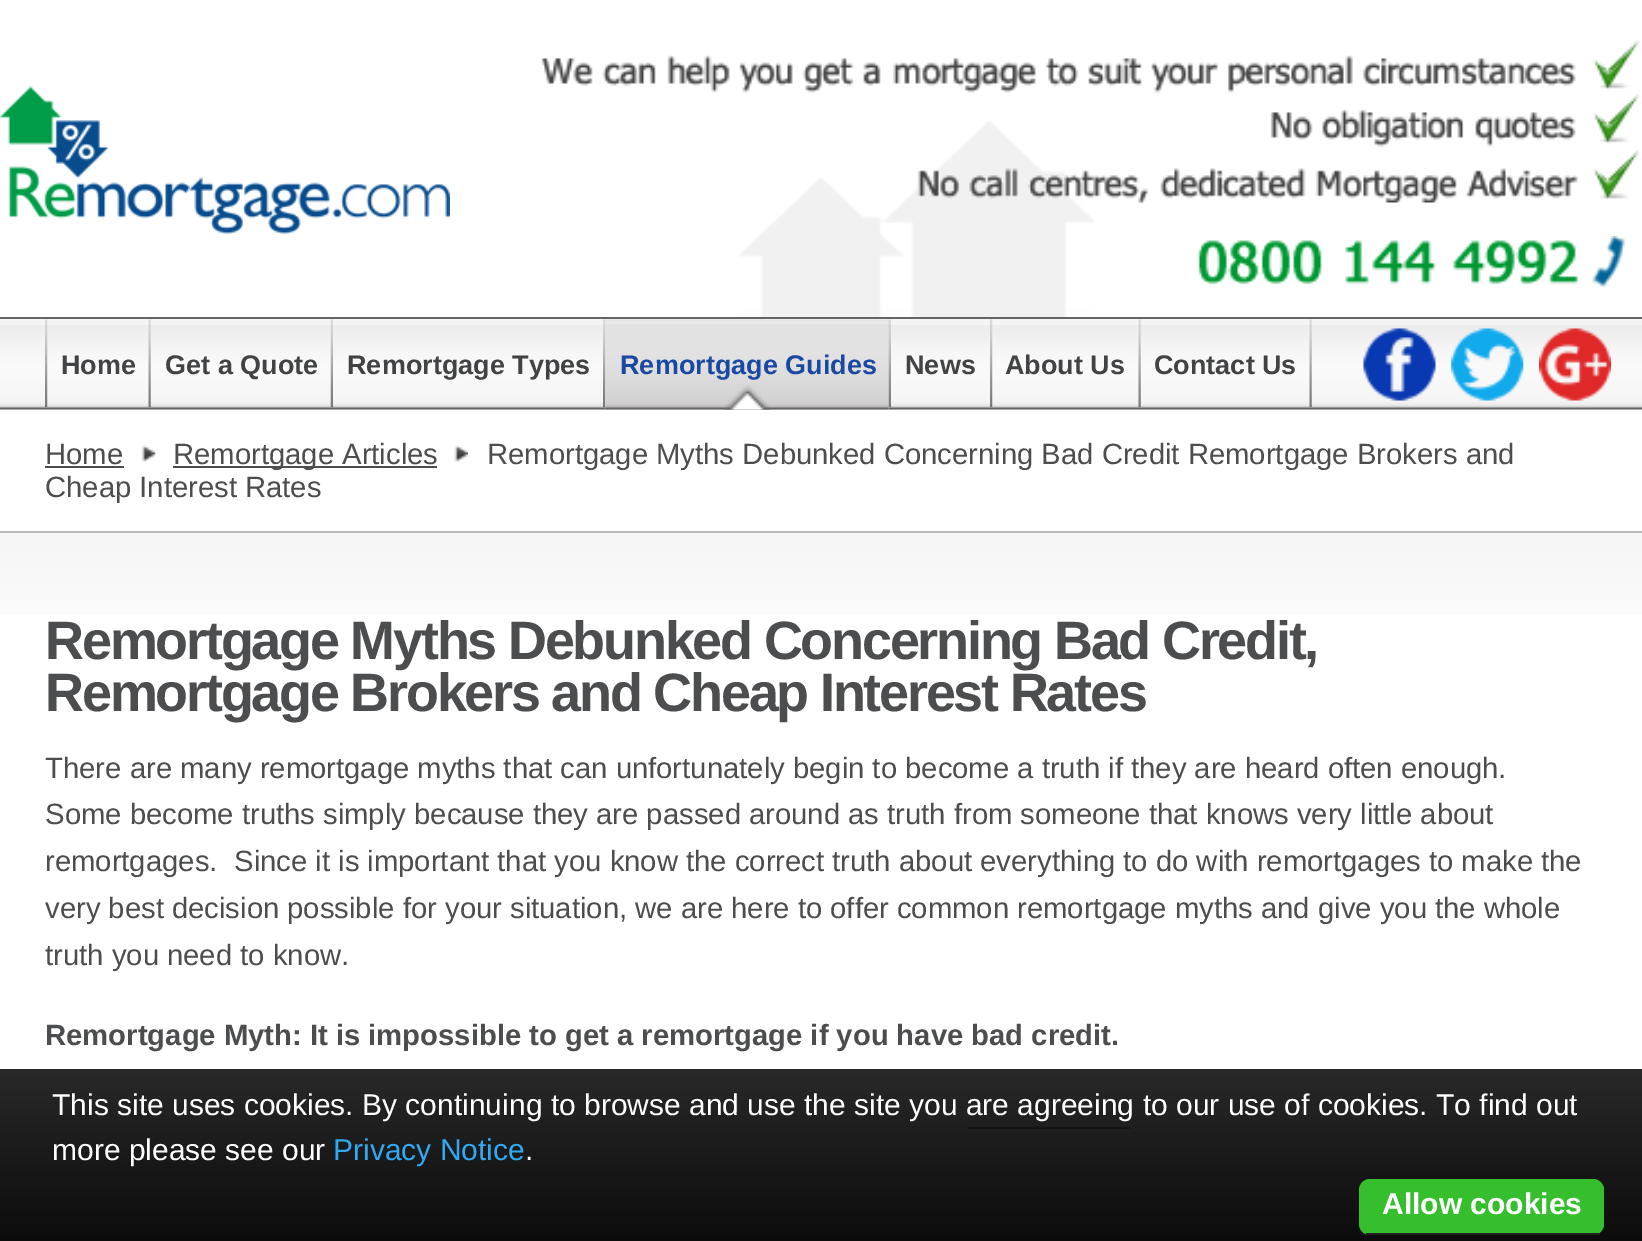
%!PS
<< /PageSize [1642 1241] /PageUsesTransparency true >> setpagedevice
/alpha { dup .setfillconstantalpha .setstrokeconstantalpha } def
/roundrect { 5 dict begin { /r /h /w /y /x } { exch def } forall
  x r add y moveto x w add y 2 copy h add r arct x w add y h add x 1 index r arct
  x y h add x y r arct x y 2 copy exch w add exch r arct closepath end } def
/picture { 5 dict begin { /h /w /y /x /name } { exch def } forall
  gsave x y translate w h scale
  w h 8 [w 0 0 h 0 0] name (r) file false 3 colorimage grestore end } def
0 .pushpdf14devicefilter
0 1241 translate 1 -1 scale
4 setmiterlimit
1 setgray
0 0 1642 1241 rectfill
(img1.rgb) 739 121 356 196 picture
(img2.rgb) 0 86 450 148 picture
(img3.rgb) 541 40 1099 163 picture
(img4.rgb) 1198 236 428 52 picture
0.957 setgray
0 319 1642 91 rectfill
(img5.rgb) 0 325 1642 85 picture
0.392 setgray
0 317 1642 2 rectfill
(img6.rgb) 1309 319 3 89 picture
(img7.rgb) 45 319 3 89 picture
/LiberationSans-Bold [27 0 0 -27 0 0] selectfont
0.259 0.263 0.271 setrgbcolor
61 374 moveto (Home) show
(img6.rgb) 148 319 3 89 picture
165 374 moveto (Get a Quote) show
(img8.rgb) 330 319 3 89 picture
347 374 moveto (Remortgage Types) show
(img7.rgb) 603 319 3 89 picture
0.871 setgray
605 320 284 90 rectfill
(img9.rgb) 605 319 284 91 picture
(img10.rgb) 724 385 46 25 picture
0.106 0.282 0.627 setrgbcolor
620 374 moveto (Remortgage Guides) show
(img11.rgb) 888 319 3 89 picture
0.259 0.263 0.271 setrgbcolor
905 374 moveto (News) show
(img7.rgb) 990 319 3 89 picture
1005 374 moveto (About Us) show
(img6.rgb) 1138 319 3 89 picture
1154 374 moveto (Contact Us) show
(img12.rgb) 1363 328 73 73 picture
(img13.rgb) 1451 328 73 73 picture
(img14.rgb) 1539 328 72 73 picture
0.722 setgray
0 531 1642 2 rectfill
/LiberationSans-Regular [29.25 0 0 -29.25 0 0] selectfont
0.298 0.302 0.31 setrgbcolor
45 464 moveto (Home) show
45 466 79 2 rectfill
(img15.rgb) 141 445 15 17 picture
173 466 264 2 rectfill
173 464 moveto (Remortgage Articles) show
(img16.rgb) 454 445 14 17 picture
487 464 moveto (Remortgage Myths Debunked Concerning Bad Credit Remortgage Brokers and) show
45 497 moveto (Cheap Interest Rates) show
(img17.rgb) 0 533 1642 81 picture
/LiberationSans-Bold [54 0 0 -54 0 0] selectfont
45 659 moveto -2.25 0 (Remortgage Myths Debunked Concerning Bad Credit,) ashow
45 711 moveto -2.25 0 (Remortgage Brokers and Cheap Interest Rates) ashow
/LiberationSans-Regular [29.25 0 0 -29.25 0 0] selectfont
45 778 moveto (There are many remortgage myths that can unfortunately begin to become a truth if they are heard often enough.) show
45 824 moveto (Some become truths simply because they are passed around as truth from someone that knows very little about) show
45 871 moveto (remortgages.) show
234 871 moveto (Since it is important that you know the correct truth about everything to do with remortgages to make the) show
45 918 moveto (very best decision possible for your situation, we are here to offer common remortgage myths and give you the whole) show
45 965 moveto (truth you need to know.) show
/LiberationSans-Bold [29.25 0 0 -29.25 0 0] selectfont
45 1045 moveto (Remortgage Myth: It is impossible to get a remortgage if you have bad credit.) show
0.106 0.282 0.627 setrgbcolor
968 1127 162 2 rectfill
0.95 alpha
gsave newpath 0 1069 moveto 1642 1069 lineto 1642 1241 lineto 0 1241 lineto closepath clip newpath
<< /ShadingType 2 /ColorSpace /DeviceRGB /Coords [828 1069 828 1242] /Extend [true true] /Function << /FunctionType 2 /Domain [0 1] /C0 [0.118 0.118 0.118] /C1 [0 0 0] /N 1 >> >> shfill grestore
/LiberationSans-Regular [30 0 0 -30 0 0] selectfont
1 alpha
1 setgray
52 1115 moveto (This site uses cookies. By continuing to browse and use the site you are agreeing to our use of cookies. To find out) show
52 1160 moveto (more please see our) show
0.192 0.659 0.941 setrgbcolor
333 1160 moveto (Privacy Notice) show
1 setgray
525 1160 moveto (.) show
0.212 0.749 0.176 setrgbcolor
1359 1179 245 56 11 roundrect fill
0.133 setgray
1366 1233 234 2 rectfill
/LiberationSans-Bold [30 0 0 -30 0 0] selectfont
1 setgray
1382 1214 moveto (Allow cookies) show
.poppdf14devicefilter showpage
